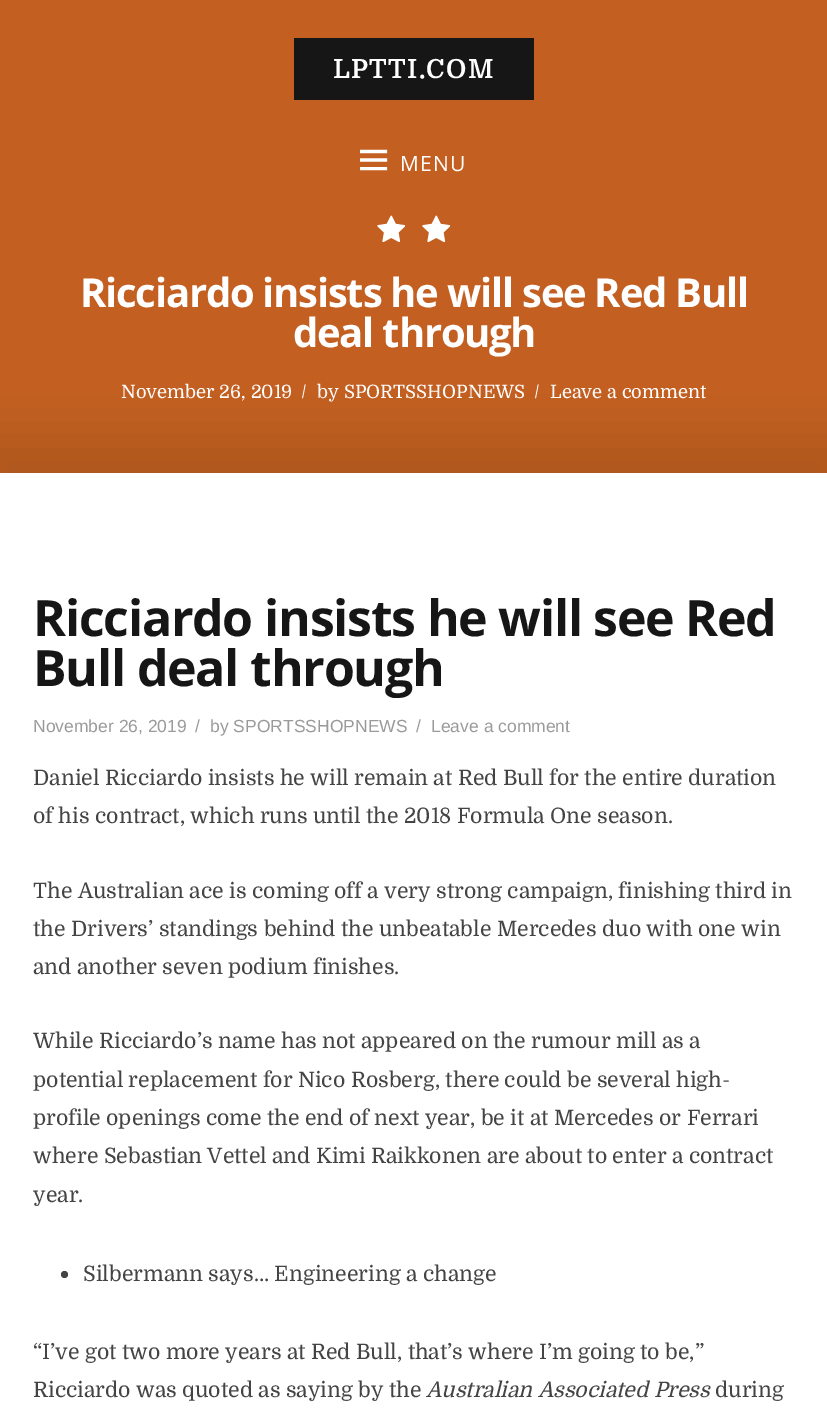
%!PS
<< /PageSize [827 1412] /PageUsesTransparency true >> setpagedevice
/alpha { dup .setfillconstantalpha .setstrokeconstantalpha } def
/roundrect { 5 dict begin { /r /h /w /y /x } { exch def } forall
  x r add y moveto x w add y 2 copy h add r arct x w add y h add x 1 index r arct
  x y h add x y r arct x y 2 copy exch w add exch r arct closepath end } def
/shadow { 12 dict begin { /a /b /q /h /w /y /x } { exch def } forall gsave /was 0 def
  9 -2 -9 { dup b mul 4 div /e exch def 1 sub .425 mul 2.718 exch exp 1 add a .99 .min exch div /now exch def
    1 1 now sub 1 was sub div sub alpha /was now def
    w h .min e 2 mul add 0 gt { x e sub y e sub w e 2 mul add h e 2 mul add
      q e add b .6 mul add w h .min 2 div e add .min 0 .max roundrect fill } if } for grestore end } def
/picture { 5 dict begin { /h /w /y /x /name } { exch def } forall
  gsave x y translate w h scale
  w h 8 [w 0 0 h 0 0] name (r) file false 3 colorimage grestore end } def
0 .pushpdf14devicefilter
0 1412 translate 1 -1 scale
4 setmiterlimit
0.765 0.373 0.129 setrgbcolor
0 0 827 1412 rectfill
0.086 setgray
294 38 240 62 rectfill
/Domine-Bold [26.25 0 0 -26.25 0 0] selectfont
1 setgray
333 78 moveto 1.25 0 (LPTTI.COM) ashow
(img1.rgb) 360 149 28 22 picture
/OpenSans-Regular [21 0 0 -21 0 0] selectfont
400 171 moveto 1.25 0 (MENU) ashow
(img2.rgb) 377 215 29 27 picture
(img2.rgb) 422 215 29 27 picture
/OpenSans-Bold [40 0 0 -40 0 0] selectfont
80 307 moveto -1.25 0 (Ricciardo insists he will see Red Bull) ashow
293 347 moveto -1.25 0 (deal through) ashow
/Domine-Regular [18.4 0 0 -18.4 0 0] selectfont
121 398 moveto (November 26, 2019) show
301 398 moveto (/) show
317 398 moveto (by SPORTSSHOPNEWS) show
534 398 moveto (/) show
550 398 moveto (Leave a comment) show
0 setgray
-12 441 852 113 0 27 0.1 shadow
1 setgray
0 473 827 939 rectfill
/OpenSans-Bold [50 0 0 -50 0 0] selectfont
0.086 setgray
33 636 moveto -1.25 0 (Ricciardo insists he will see Red) ashow
33 686 moveto -1.25 0 (Bull deal through) ashow
/LiberationSans-Regular [17.5 0 0 -17.5 0 0] selectfont
0.604 setgray
33 732 moveto (November 26, 2019) show
195 732 moveto (/) show
210 732 moveto (by SPORTSSHOPNEWS) show
416 732 moveto (/) show
431 732 moveto (Leave a comment) show
/Domine-Regular [21.25 0 0 -21.25 0 0] selectfont
0.267 setgray
33 785 moveto (Daniel Ricciardo insists he will remain at Red Bull for the entire duration) show
33 823 moveto (of his contract, which runs until the 2018 Formula One season.) show
33 898 moveto (The Australian ace is coming off a very strong campaign, finishing third in) show
33 936 moveto (the Drivers’ standings behind the unbeatable Mercedes duo with one win) show
33 974 moveto (and another seven podium finishes.) show
33 1048 moveto (While Ricciardo’s name has not appeared on the rumour mill as a) show
33 1087 moveto (potential replacement for Nico Rosberg, there could be several high-) show
33 1125 moveto (profile openings come the end of next year, be it at Mercedes or Ferrari) show
33 1163 moveto (where Sebastian Vettel and Kimi Raikkonen are about to enter a contract) show
33 1202 moveto (year.) show
newpath 64.5 1274.5 3.5 0 360 arc closepath fill
83 1281 moveto (Silbermann says… Engineering a change) show
33 1359 moveto (“I’ve got two more years at Red Bull, that’s where I’m going to be,”) show
33 1397 moveto (Ricciardo was quoted as saying by the) show
/Domine-Italic [21.25 0 0 -21.25 0 0] selectfont
426 1397 moveto (Australian Associated Press) show
/Domine-Regular [21.25 0 0 -21.25 0 0] selectfont
715 1397 moveto (during) show
.poppdf14devicefilter showpage
